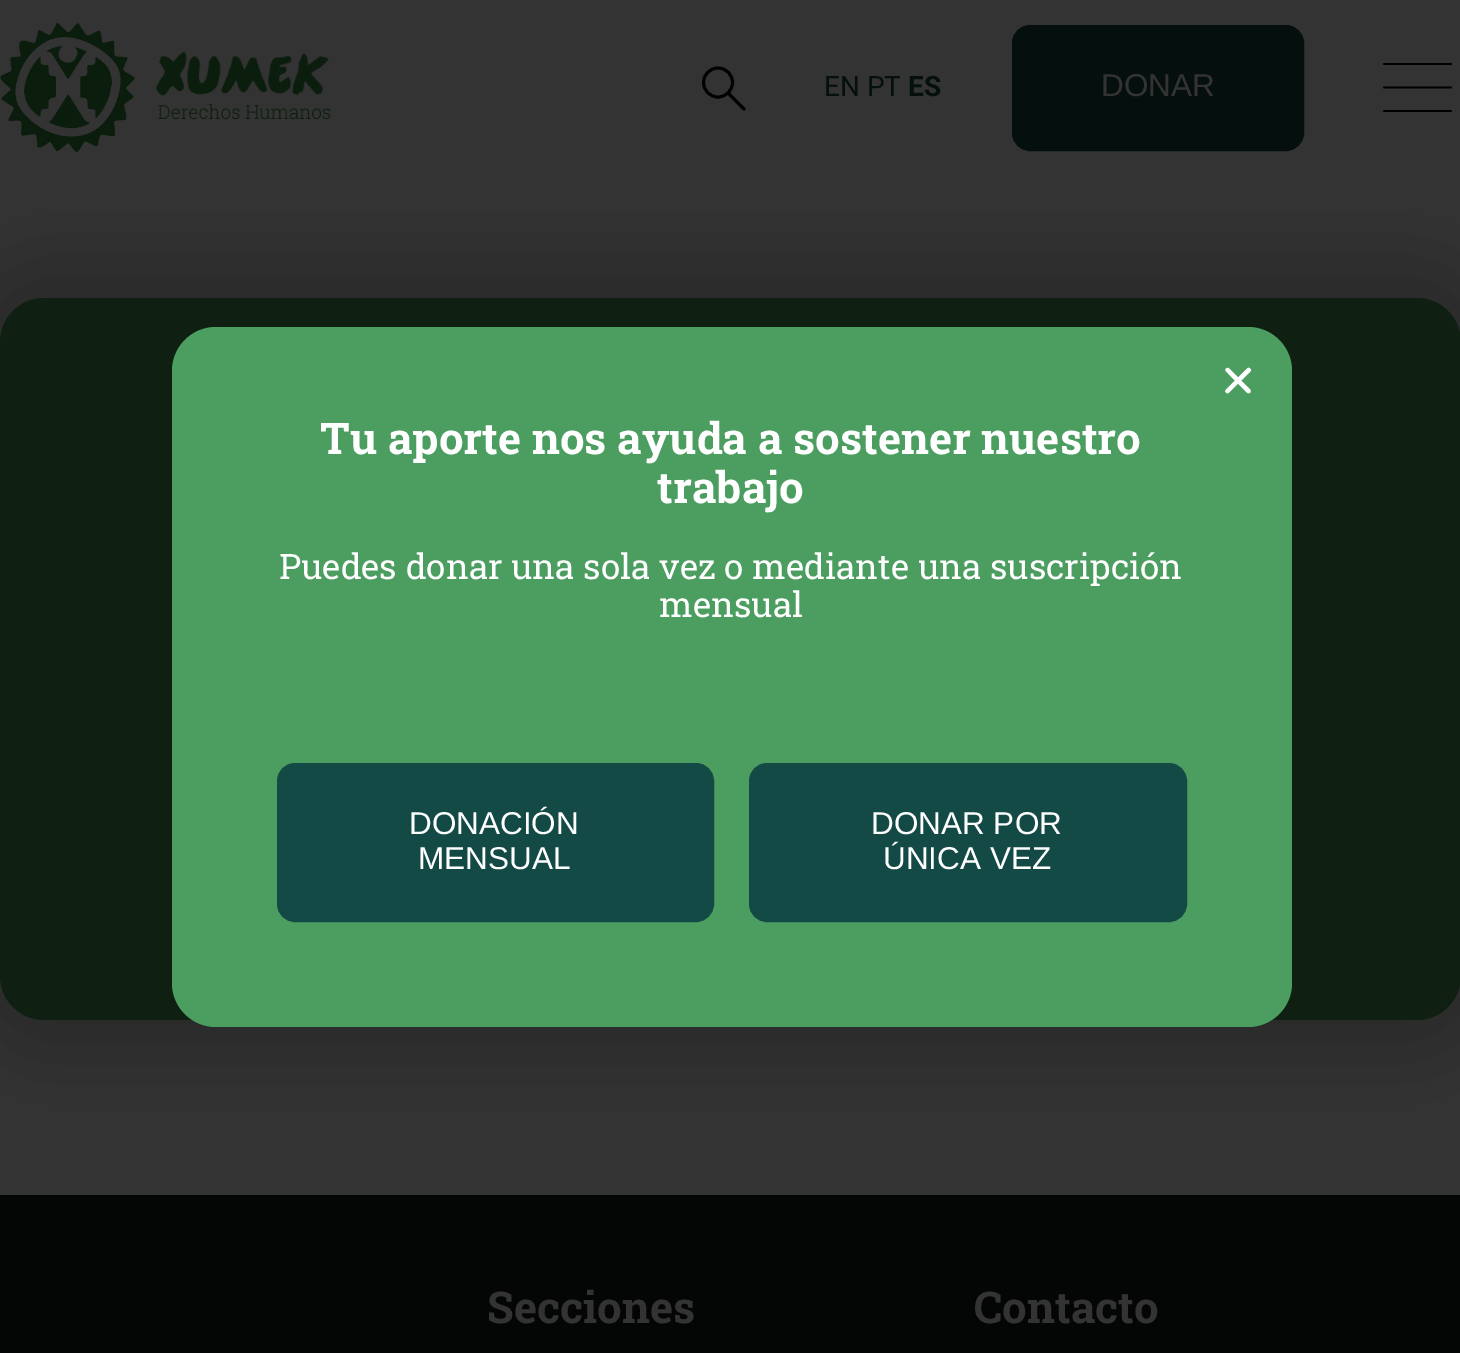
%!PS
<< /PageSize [1460 1353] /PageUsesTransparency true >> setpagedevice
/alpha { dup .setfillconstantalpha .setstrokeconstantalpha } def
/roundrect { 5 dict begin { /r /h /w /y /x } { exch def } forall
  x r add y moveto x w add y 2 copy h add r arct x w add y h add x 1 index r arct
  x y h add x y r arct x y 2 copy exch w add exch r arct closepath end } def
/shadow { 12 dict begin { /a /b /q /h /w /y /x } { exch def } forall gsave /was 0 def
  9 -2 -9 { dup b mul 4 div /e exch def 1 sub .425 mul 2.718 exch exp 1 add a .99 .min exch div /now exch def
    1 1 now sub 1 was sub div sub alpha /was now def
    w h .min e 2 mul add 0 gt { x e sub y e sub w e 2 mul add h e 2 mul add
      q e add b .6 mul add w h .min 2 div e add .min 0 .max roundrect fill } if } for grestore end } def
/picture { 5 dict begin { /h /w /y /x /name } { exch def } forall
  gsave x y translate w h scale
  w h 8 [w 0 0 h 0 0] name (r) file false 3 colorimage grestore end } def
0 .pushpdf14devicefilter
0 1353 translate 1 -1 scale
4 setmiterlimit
0.2 setgray
0 0 1460 1353 rectfill
0.141 setgray
-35 263 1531 792 79 41 0.67 shadow
(img1.rgb) 0 22 135 131 picture
(img2.rgb) 155 51 176 69 picture
0 setgray
2.9 setlinewidth
newpath 718 82.5 14.5 0 360 arc closepath stroke
1 setlinecap
1 setlinejoin
newpath 744 109 moveto 728 93 lineto stroke
/Roboto-Regular [28 0 0 -28 0 0] selectfont
0.016 0.059 0.055 setrgbcolor
824 96 moveto (EN PT) show
/Roboto-Bold [28 0 0 -28 0 0] selectfont
908 96 moveto (ES) show
1013 26 290 124 17 roundrect gsave fill grestore
2 setlinewidth
0 setlinecap
0 setlinejoin
stroke
/LiberationSans-Regular [31.5 0 0 -31.5 0 0] selectfont
0.2 setgray
1101 96 moveto (DONAR) show
0 setgray
1.8 setlinewidth
1 setlinecap
1 setlinejoin
newpath 1384 87.5 moveto 1451 87.5 lineto 1384 111 moveto 1451 111 lineto 1384 64 moveto 1451 64 lineto stroke
0.059 0.125 0.075 setrgbcolor
0 298 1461 722 44 roundrect fill
0.294 0.62 0.376 setrgbcolor
172 327 1120 700 44 roundrect fill
(img3.rgb) 1225 367 27 27 picture
/RobotoSlab-Bold [43.75 0 0 -43.75 0 0] selectfont
1 setgray
320 454 moveto (Tu aporte nos ayuda a sostener nuestro) show
657 503 moveto (trabajo) show
/RobotoSlab-Regular [35 0 0 -35 0 0] selectfont
279 579 moveto (Puedes donar una sola vez o mediante una suscripción) show
659 617 moveto (mensual) show
0.075 0.29 0.275 setrgbcolor
278 764 435 157 17 roundrect gsave fill grestore
2 setlinewidth
0 setlinecap
0 setlinejoin
stroke
/LiberationSans-Regular [31.5 0 0 -31.5 0 0] selectfont
1 setgray
409 834 moveto (DONACIÓN) show
418 869 moveto (MENSUAL) show
0.075 0.29 0.275 setrgbcolor
750 764 436 157 17 roundrect gsave fill grestore
stroke
1 setgray
871 834 moveto (DONAR POR) show
883 869 moveto (ÚNICA VEZ) show
0.012 0.024 0.016 setrgbcolor
0 1195 1460 158 rectfill
/RobotoSlab-Bold [43.75 0 0 -43.75 0 0] selectfont
0.2 setgray
487 1323 moveto (Secciones) show
974 1323 moveto (Contacto) show
.poppdf14devicefilter showpage
